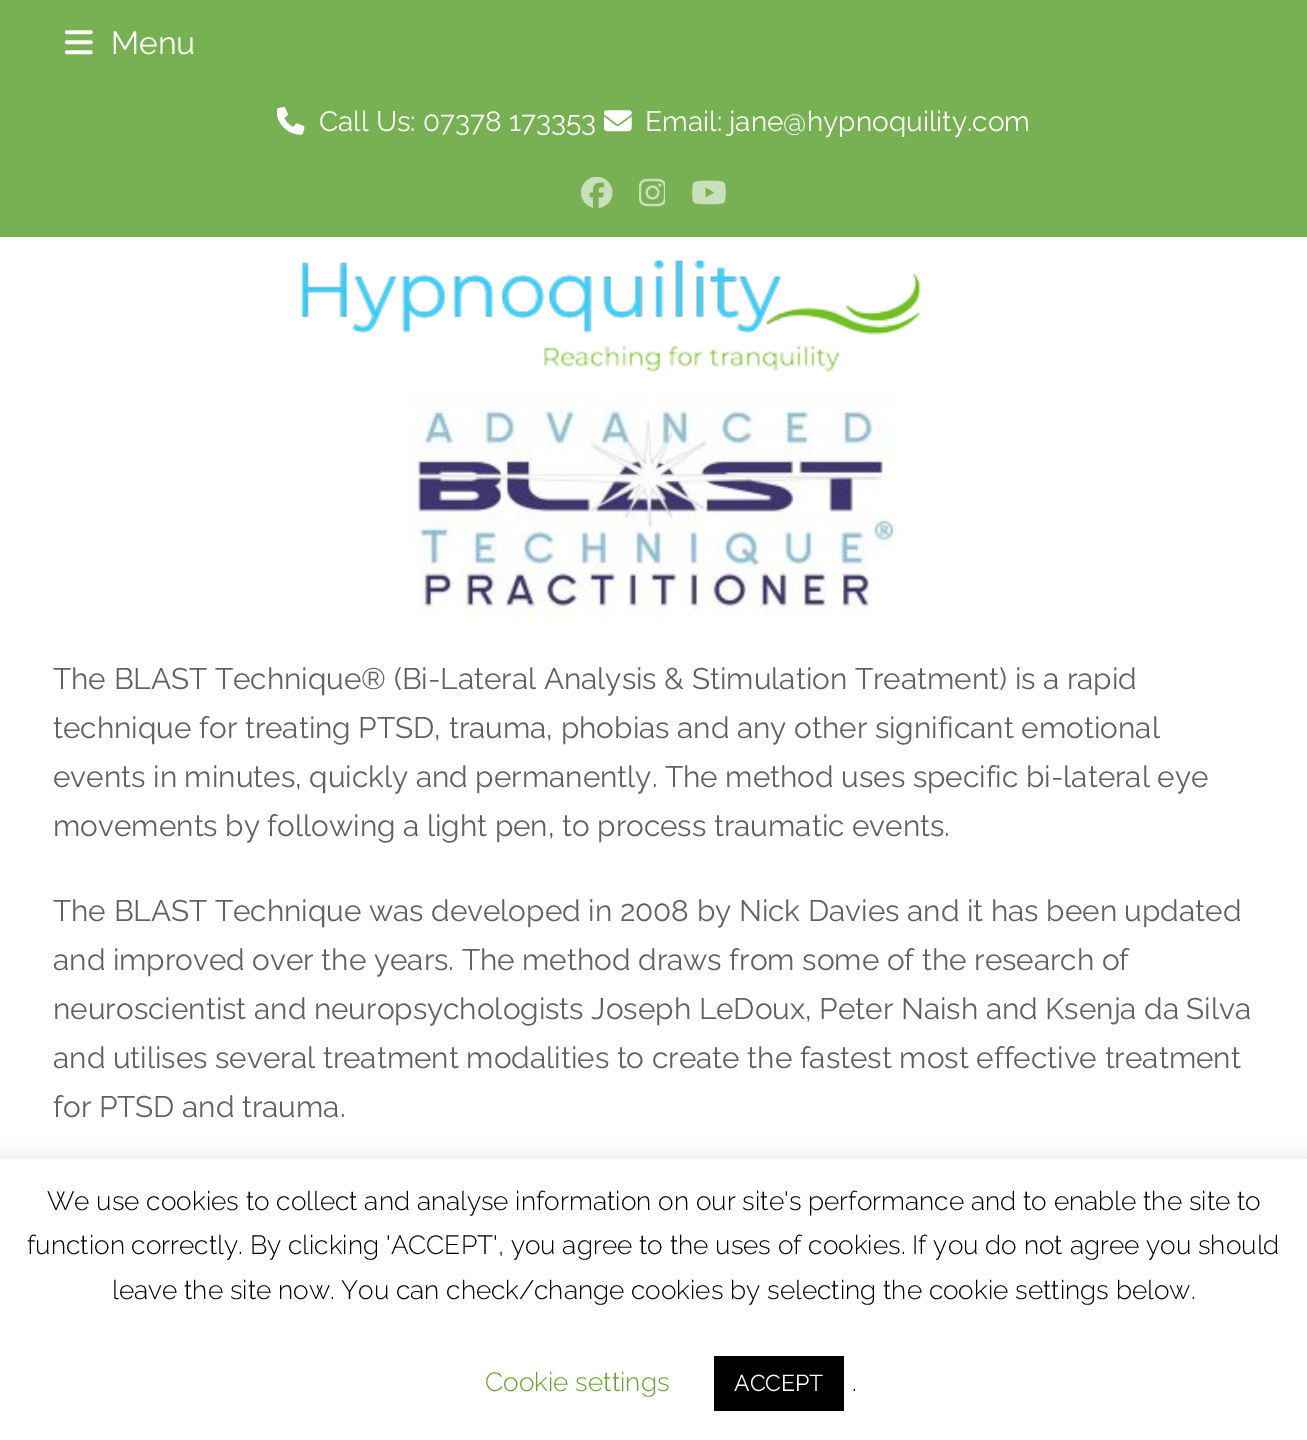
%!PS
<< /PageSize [1307 1440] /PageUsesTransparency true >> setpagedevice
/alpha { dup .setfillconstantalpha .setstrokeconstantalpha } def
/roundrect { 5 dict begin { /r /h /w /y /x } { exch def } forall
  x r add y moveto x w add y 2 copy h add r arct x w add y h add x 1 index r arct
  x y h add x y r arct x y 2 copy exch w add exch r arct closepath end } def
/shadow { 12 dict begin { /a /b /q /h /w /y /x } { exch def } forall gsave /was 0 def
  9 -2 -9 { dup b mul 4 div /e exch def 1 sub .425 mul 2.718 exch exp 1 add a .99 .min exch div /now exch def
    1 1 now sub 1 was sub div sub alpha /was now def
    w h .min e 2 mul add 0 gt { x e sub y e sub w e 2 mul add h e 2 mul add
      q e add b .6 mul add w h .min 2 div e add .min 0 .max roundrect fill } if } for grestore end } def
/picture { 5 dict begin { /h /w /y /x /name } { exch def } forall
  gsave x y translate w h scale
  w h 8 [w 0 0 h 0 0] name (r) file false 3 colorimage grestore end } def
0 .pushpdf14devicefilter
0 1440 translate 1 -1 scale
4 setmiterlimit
1 setgray
0 0 1307 1440 rectfill
0.471 0.694 0.325 setrgbcolor
0 0 1307 237 rectfill
(img1.rgb) 65 30 28 25 picture
/Raleway-Regular [32 0 0 -32 0 0] selectfont
1 setgray
111 54 moveto (Menu) show
(img2.rgb) 277 107 28 28 picture
/Raleway-Regular [28 0 0 -28 0 0] selectfont
319 131 moveto (Call Us: 07378 173353) show
(img3.rgb) 604 110 28 22 picture
645 131 moveto (Email: jane@hypnoquility.com) show
(img4.rgb) 581 177 32 31 picture
(img5.rgb) 639 178 26 29 picture
(img6.rgb) 692 180 34 25 picture
(img7.rgb) 300 259 621 113 picture
(img8.rgb) 408 394 489 225 picture
/Raleway-Regular [29.75 0 0 -29.75 0 0] selectfont
0.38 setgray
53 689 moveto (The BLAST Technique® \(Bi-Lateral Analysis & Stimulation Treatment\) is a rapid) show
53 738 moveto (technique for treating PTSD, trauma, phobias and any other significant emotional) show
53 787 moveto (events in minutes, quickly and permanently. The method uses specific bi-lateral eye) show
53 836 moveto (movements by following a light pen, to process traumatic events.) show
53 921 moveto (The BLAST Technique was developed in 2008 by Nick Davies and it has been updated) show
53 970 moveto (and improved over the years. The method draws from some of the research of) show
53 1019 moveto (neuroscientist and neuropsychologists Joseph LeDoux, Peter Naish and Ksenja da Silva) show
53 1068 moveto (and utilises several treatment modalities to create the fastest most effective treatment) show
53 1117 moveto (for PTSD and trauma.) show
0.675 0.671 0.671 setrgbcolor
0 1157 1307 282 0 9 0.3 shadow
1 setgray
0 1159 1307 281 rectfill
/Raleway-Light [26.25 0 0 -26.25 0 0] selectfont
0 setgray
47 1210 moveto (We use cookies to collect and analyse information on our site's performance and to enable the site to) show
27 1254 moveto (function correctly. By clicking 'ACCEPT', you agree to the uses of cookies. If you do not agree you should) show
112 1299 moveto (leave the site now. You can check/change cookies by selecting the cookie settings below.) show
0.384 0.639 0.161 setrgbcolor
485 1391 moveto (Cookie settings) show
0 setgray
714 1356 130 55 rectfill
/Raleway-Regular [23 0 0 -23 0 0] selectfont
1 setgray
734 1391 moveto (ACCEPT) show
/Raleway-Light [26.25 0 0 -26.25 0 0] selectfont
0 setgray
852 1391 moveto (.) show
.poppdf14devicefilter showpage
